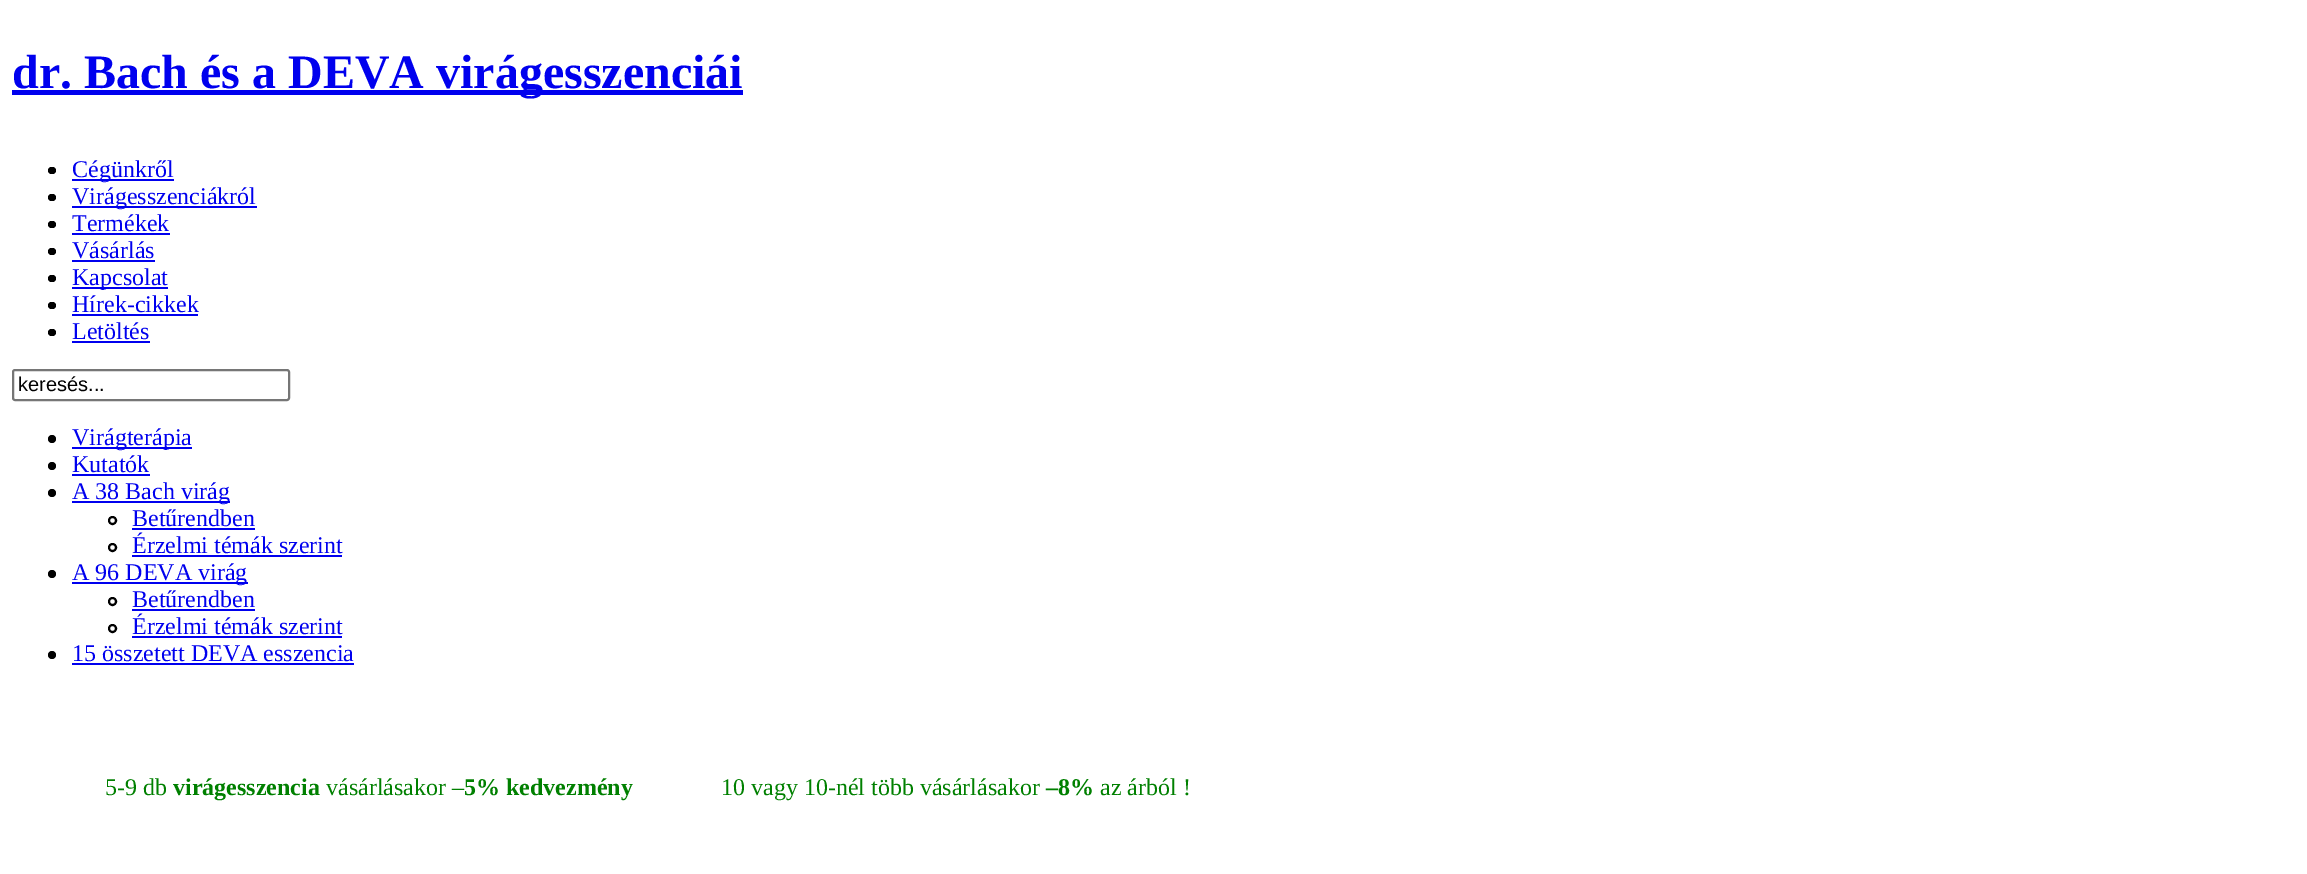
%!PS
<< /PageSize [2307 874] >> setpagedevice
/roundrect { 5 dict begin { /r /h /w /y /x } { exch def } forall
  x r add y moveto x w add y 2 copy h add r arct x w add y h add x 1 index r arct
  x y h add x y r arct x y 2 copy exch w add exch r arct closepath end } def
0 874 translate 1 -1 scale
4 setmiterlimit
1 setgray
0 0 2307 874 rectfill
0 0 0.933 setrgbcolor
12 90 731 5 rectfill
/LiberationSerif-Bold [48 0 0 -48 0 0] selectfont
12 88 moveto (dr. Bach és a DEVA virágesszenciái) show
0 setgray
48 167 8 7 3.5 roundrect fill
0 0 0.933 setrgbcolor
72 179 102 2 rectfill
/LiberationSerif-Regular [24 0 0 -24 0 0] selectfont
72 177 moveto (Cégünkről) show
0 setgray
48 194 8 7 3.5 roundrect fill
0 0 0.933 setrgbcolor
72 206 185 2 rectfill
72 204 moveto (Virágesszenciákról) show
0 setgray
48 221 8 7 3.5 roundrect fill
0 0 0.933 setrgbcolor
72 231 moveto (Termékek) show
72 233 98 2 rectfill
0 setgray
48 248 8 7 3.5 roundrect fill
0 0 0.933 setrgbcolor
72 258 moveto (Vásárlás) show
72 260 83 2 rectfill
0 setgray
48 275 8 7 3.5 roundrect fill
0 0 0.933 setrgbcolor
72 287 96 2 rectfill
72 285 moveto (Kapcsolat) show
0 setgray
48 302 8 7 3.5 roundrect fill
0 0 0.933 setrgbcolor
72 312 moveto (Hírek-cikkek) show
72 314 126 2 rectfill
0 setgray
48 329 8 7 3.5 roundrect fill
0 0 0.933 setrgbcolor
72 339 moveto (Letöltés) show
72 341 78 2 rectfill
0.463 setgray
2 setlinewidth
13 370 276 30 2 roundrect stroke
/LiberationSans-Regular [20 0 0 -20 0 0] selectfont
0 setgray
18 391 moveto (keresés...) show
newpath 52 439 4 0 360 arc closepath fill
0 0 0.933 setrgbcolor
72 447 120 2 rectfill
/LiberationSerif-Regular [24 0 0 -24 0 0] selectfont
72 445 moveto (Virágterápia) show
0 setgray
newpath 52 466 4 0 360 arc closepath fill
0 0 0.933 setrgbcolor
72 472 moveto (Kutatók) show
72 474 78 2 rectfill
0 setgray
newpath 52 493 4 0 360 arc closepath fill
0 0 0.933 setrgbcolor
72 501 158 2 rectfill
72 499 moveto (A 38 Bach virág) show
0 setgray
newpath 112.5 520.5 3.5 0 360 arc closepath stroke
0 0 0.933 setrgbcolor
132 526 moveto (Betűrendben) show
132 528 123 2 rectfill
0 setgray
newpath 112.5 547.5 3.5 0 360 arc closepath stroke
0 0 0.933 setrgbcolor
132 553 moveto (Érzelmi témák szerint) show
132 555 210 2 rectfill
0 setgray
newpath 52 574 4 0 360 arc closepath fill
0 0 0.933 setrgbcolor
72 582 176 2 rectfill
72 580 moveto (A 96 DEVA virág) show
0 setgray
newpath 112.5 601.5 3.5 0 360 arc closepath stroke
0 0 0.933 setrgbcolor
132 607 moveto (Betűrendben) show
132 609 123 2 rectfill
0 setgray
newpath 112.5 628.5 3.5 0 360 arc closepath stroke
0 0 0.933 setrgbcolor
132 634 moveto (Érzelmi témák szerint) show
132 636 210 2 rectfill
0 setgray
newpath 52 655 4 0 360 arc closepath fill
0 0 0.933 setrgbcolor
72 661 moveto (15 összetett DEVA esszencia) show
72 663 282 2 rectfill
0 0.502 0 setrgbcolor
105 795 moveto (5-9 db) show
/LiberationSerif-Bold [24 0 0 -24 0 0] selectfont
173 795 moveto (virágesszencia) show
/LiberationSerif-Regular [24 0 0 -24 0 0] selectfont
326 795 moveto (vásárlásakor –) show
/LiberationSerif-Bold [24 0 0 -24 0 0] selectfont
464 795 moveto (5% kedvezmény) show
/LiberationSerif-Regular [24 0 0 -24 0 0] selectfont
721 795 moveto (10 vagy 10-nél több vásárlásakor) show
/LiberationSerif-Bold [24 0 0 -24 0 0] selectfont
1046 795 moveto (–8%) show
/LiberationSerif-Regular [24 0 0 -24 0 0] selectfont
1100 795 moveto (az árból !) show
showpage
